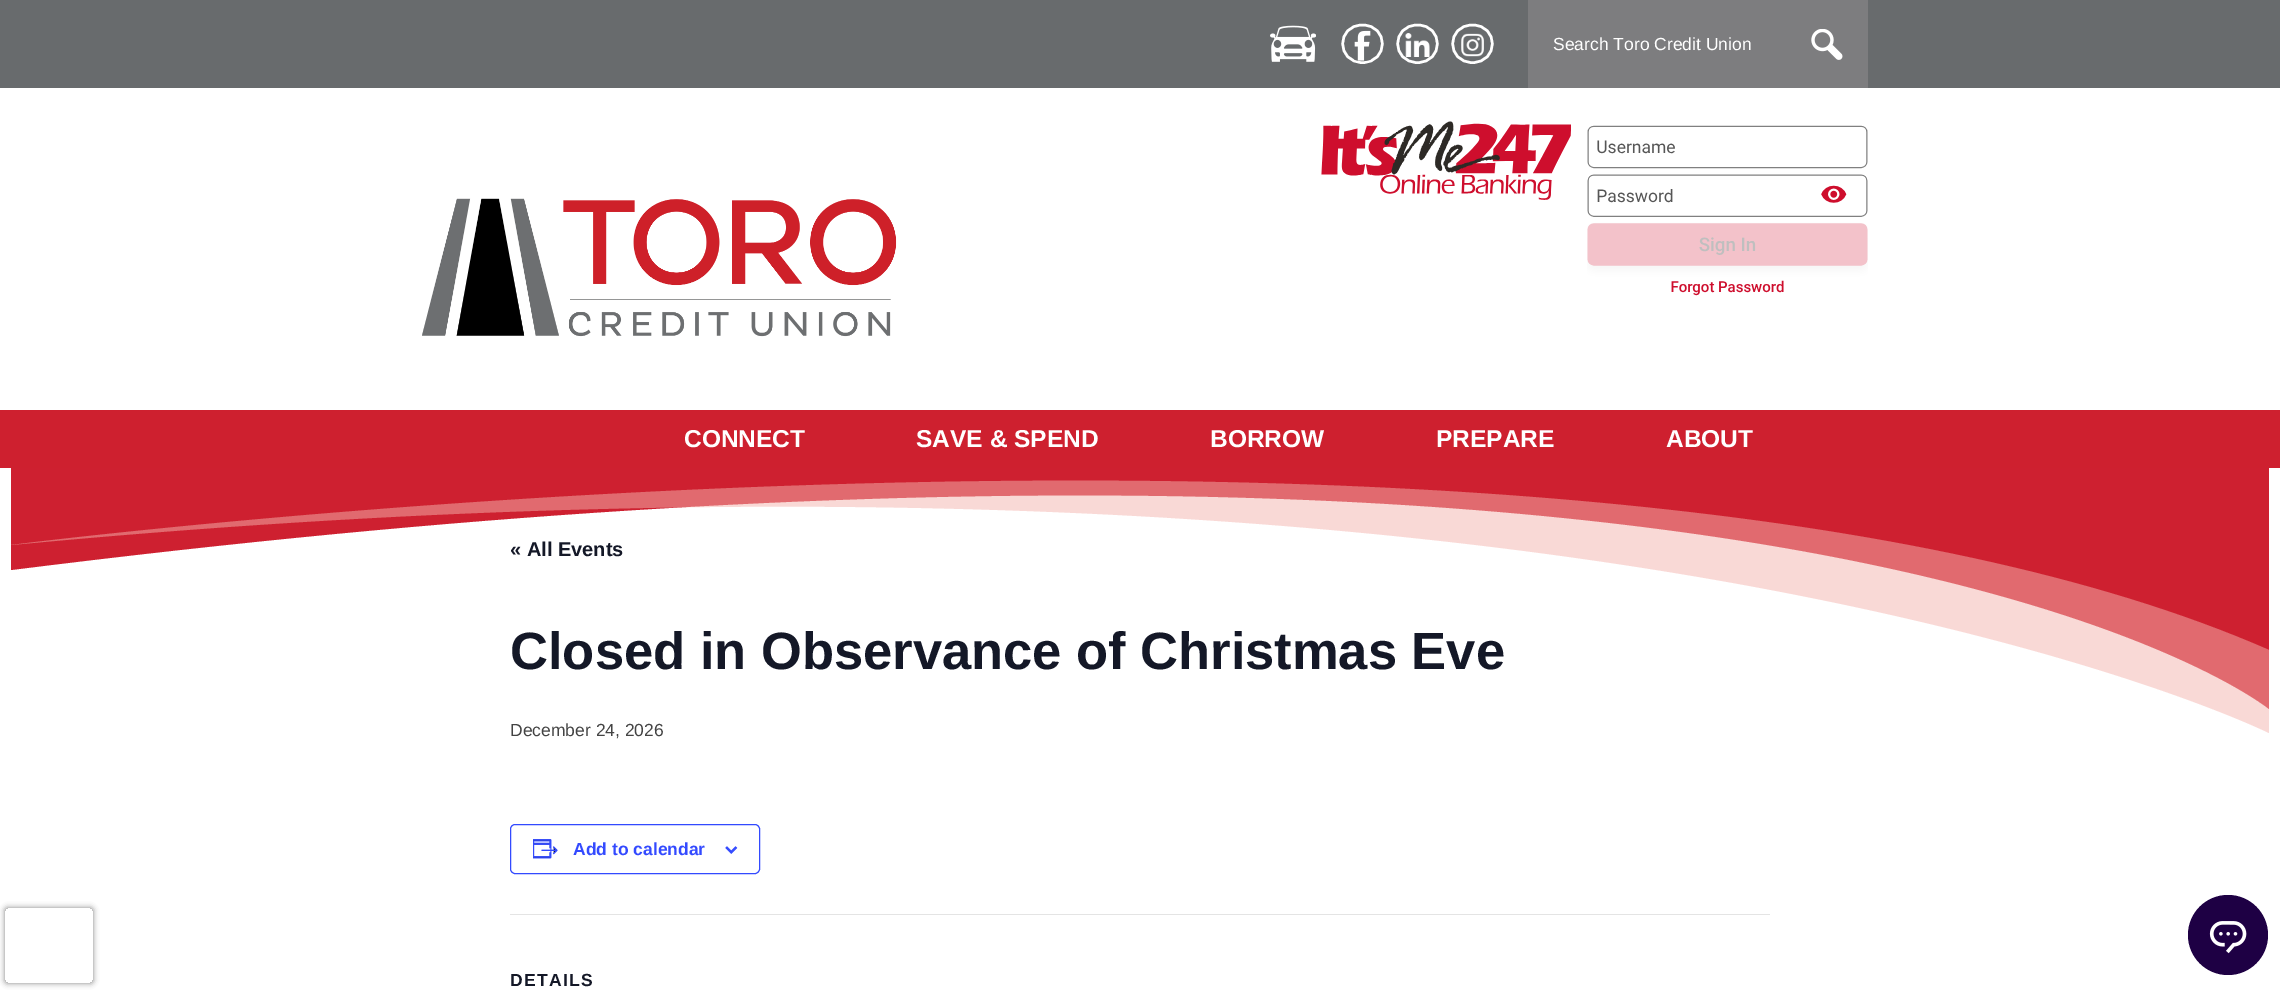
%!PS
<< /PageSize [2280 1000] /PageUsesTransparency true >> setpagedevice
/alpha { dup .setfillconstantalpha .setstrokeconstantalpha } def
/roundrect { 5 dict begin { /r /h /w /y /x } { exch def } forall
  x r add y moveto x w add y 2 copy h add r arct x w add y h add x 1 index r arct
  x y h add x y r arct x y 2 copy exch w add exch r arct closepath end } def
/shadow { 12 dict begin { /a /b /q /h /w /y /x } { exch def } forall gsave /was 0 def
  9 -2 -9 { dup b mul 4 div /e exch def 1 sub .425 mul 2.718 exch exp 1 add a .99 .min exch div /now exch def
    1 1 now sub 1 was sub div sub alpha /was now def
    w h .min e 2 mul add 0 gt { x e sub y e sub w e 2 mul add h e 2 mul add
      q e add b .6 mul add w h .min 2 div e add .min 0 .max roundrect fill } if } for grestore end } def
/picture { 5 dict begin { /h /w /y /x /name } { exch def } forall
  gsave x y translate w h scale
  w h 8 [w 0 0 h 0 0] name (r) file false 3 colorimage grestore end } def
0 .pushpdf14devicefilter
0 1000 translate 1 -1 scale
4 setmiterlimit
1 setgray
0 0 2280 1000 rectfill
gsave
newpath 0 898 moveto 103 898 lineto 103 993 lineto 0 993 lineto closepath 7.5 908 moveto 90.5 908 lineto 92 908 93 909 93 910.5 curveto 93 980.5 lineto 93 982 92 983 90.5 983 curveto 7.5 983 lineto 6 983 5 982 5 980.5 curveto 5 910.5 lineto 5 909 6 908 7.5 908 curveto closepath eoclip newpath
0.502 setgray
5 908 88 75 2.5 3 1 shadow
grestore
0.408 0.42 0.427 setrgbcolor
0 0 2280 88 rectfill
(img1.rgb) 1270 25 46 37 picture
1 setgray
2.5 setlinewidth
newpath 1362.5 25 moveto 1389 25 1389 62.5 1362.5 62.5 curveto 1336 62.5 1336 25 1362.5 25 curveto closepath stroke
(img2.rgb) 1354 30 17 31 picture
newpath 1417.5 25 moveto 1444 25 1444 62.5 1417.5 62.5 curveto 1391 62.5 1391 25 1417.5 25 curveto closepath stroke
(img3.rgb) 1405 33 25 24 picture
newpath 1472.5 25 moveto 1499 25 1499 62.5 1472.5 62.5 curveto 1446 62.5 1446 25 1472.5 25 curveto closepath stroke
(img4.rgb) 1461 33 23 24 picture
0.49 0.49 0.498 setrgbcolor
1528 0 340 88 rectfill
/LiberationSans-Regular [17.5 0 0 -17.5 0 0] selectfont
1 setgray
1553 50 moveto (Search Toro Credit Union) show
(img5.rgb) 1811 29 32 31 picture
(img6.rgb) 422 198 475 139 picture
(img7.rgb) 1321 121 250 79 picture
(img8.rgb) 1587 125 281 171 picture
0.808 0.125 0.184 setrgbcolor
0 410 2280 58 rectfill
/LiberationSans-Bold [24.5 0 0 -24.5 0 0] selectfont
1 setgray
684 447 moveto (CONNECT) show
916 447 moveto (SAVE & SPEND) show
1210 447 moveto (BORROW) show
1436 447 moveto (PREPARE) show
1666 447 moveto (ABOUT) show
/LiberationSans-Bold [20 0 0 -20 0 0] selectfont
0.078 0.094 0.153 setrgbcolor
510 556 moveto (« All Events) show
/LiberationSans-Bold [52.5 0 0 -52.5 0 0] selectfont
510 669 moveto (Closed in Observance of Christmas Eve) show
0.808 0.125 0.188 setrgbcolor
newpath 11 468 moveto 2269 468 lineto 2269 709 lineto 2269 709 1820 342 11 570 curveto closepath fill
/LiberationSans-Regular [17.5 0 0 -17.5 0 0] selectfont
0.267 setgray
510 736 moveto (December 24, 2026) show
0.5 alpha
0.957 0.706 0.678 setrgbcolor
newpath 2269 650 moveto 2269 733 lineto 2269 733 1589 395 11 545 curveto 11 545 1573 345 2269 650 curveto closepath fill
1 alpha
0.2 0.29 1 setrgbcolor
1 setlinewidth
510.5 824.5 249 49 4.5 roundrect stroke
(img9.rgb) 533 839 25 20 picture
/LiberationSans-Bold [17.5 0 0 -17.5 0 0] selectfont
573 855 moveto (Add to calendar) show
(img10.rgb) 725 846 13 8 picture
0.894 setgray
510 914 1260 1 rectfill
0.078 0.094 0.153 setrgbcolor
510 986 moveto 1.25 0 (DETAILS) ashow
0.118 0 0.267 setrgbcolor
newpath 2228 935 40 0 360 arc closepath fill
(img11.rgb) 2209 921 38 33 picture
.poppdf14devicefilter showpage
